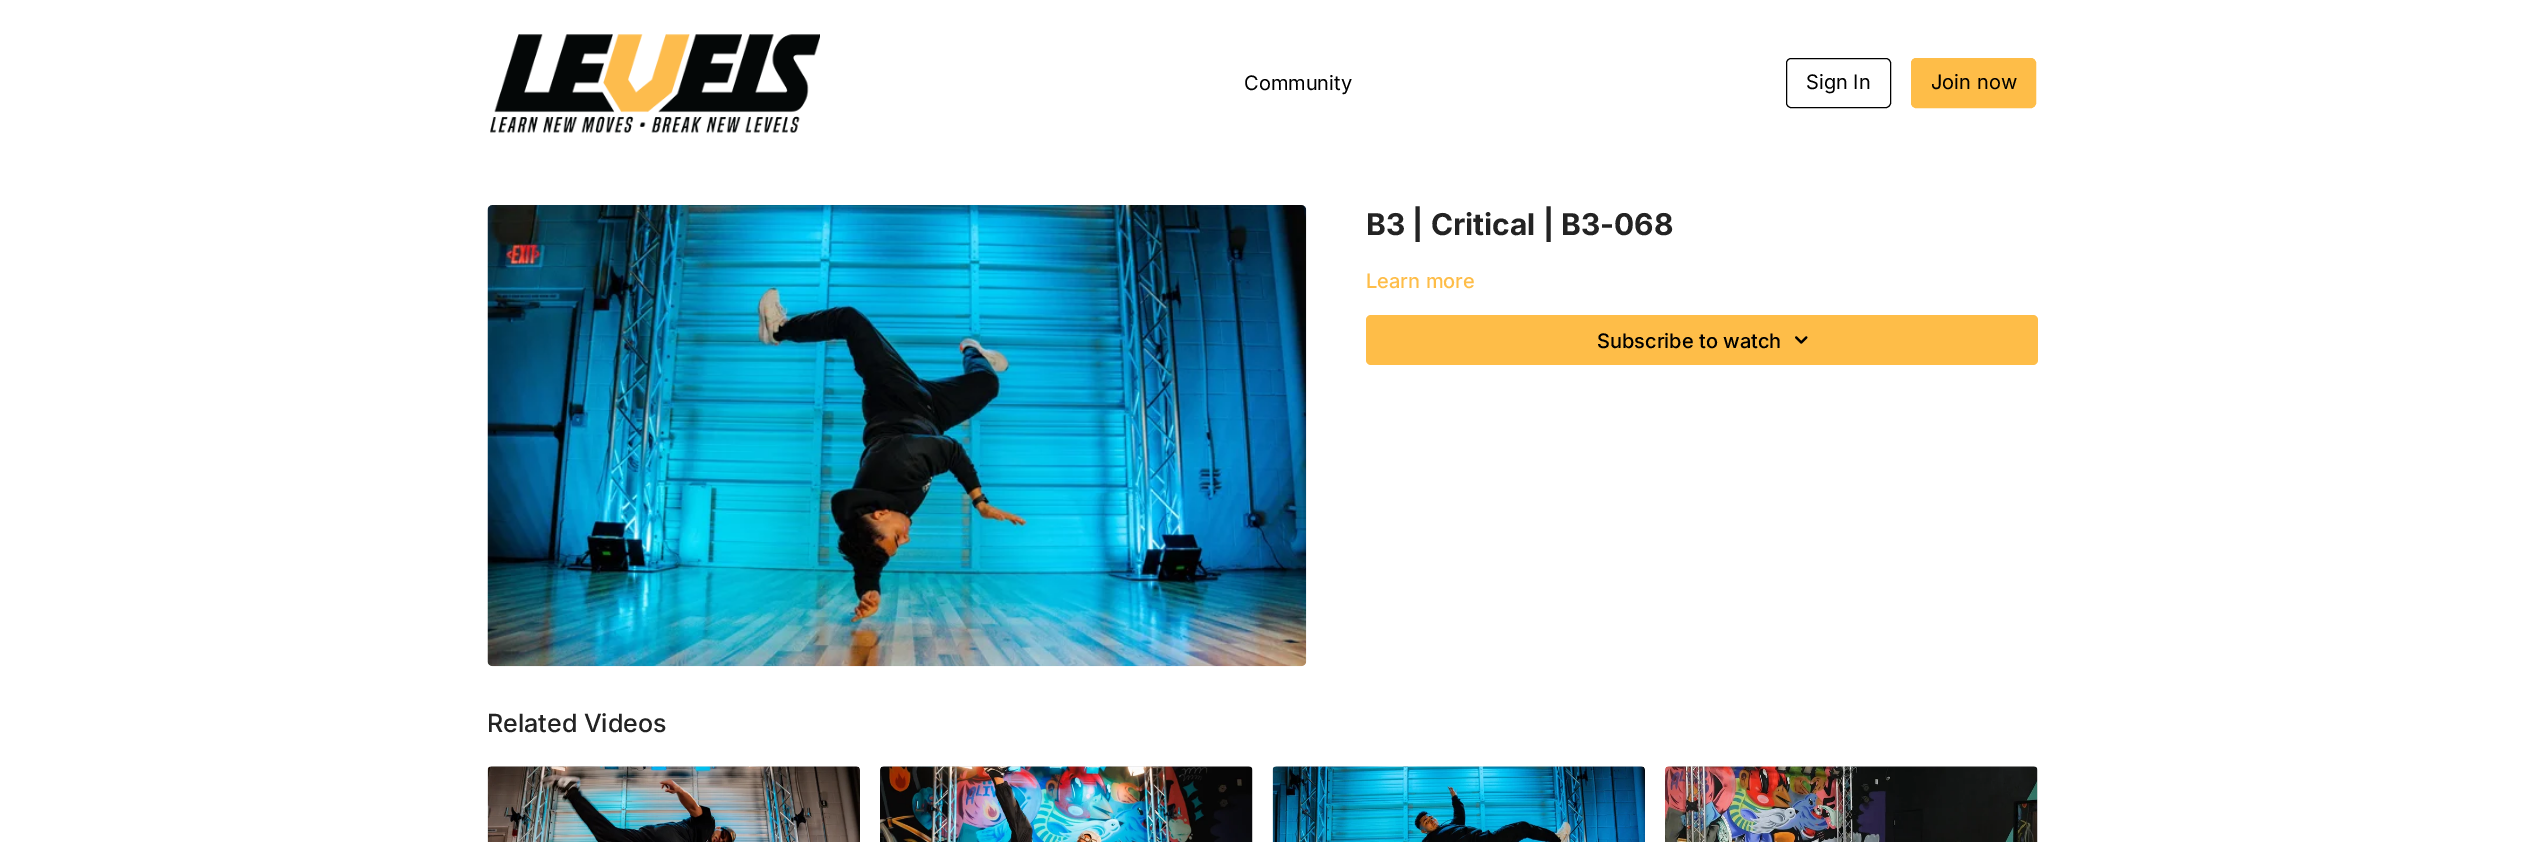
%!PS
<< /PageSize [2523 842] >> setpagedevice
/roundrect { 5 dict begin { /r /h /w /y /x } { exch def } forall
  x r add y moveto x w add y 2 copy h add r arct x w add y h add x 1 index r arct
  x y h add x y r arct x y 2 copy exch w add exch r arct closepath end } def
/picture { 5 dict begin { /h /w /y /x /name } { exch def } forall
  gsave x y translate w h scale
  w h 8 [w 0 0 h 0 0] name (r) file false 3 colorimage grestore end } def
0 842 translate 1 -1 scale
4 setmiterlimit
1 setgray
0 0 2523 842 rectfill
(img1.rgb) 490 34 330 99 picture
/Inter-Regular [20 0 0 -20 0 0] selectfont
0 setgray
1244 90 moveto (Community) show
1786.5 58.5 104 49 4.5 roundrect stroke
1806 89 moveto (Sign In) show
0.996 0.741 0.282 setrgbcolor
1911.5 58.5 124 49 4.5 roundrect gsave fill grestore
stroke
0 setgray
1931 89 moveto (Join now) show
(img2.rgb) 487 205 820 462 picture
/Inter-Bold [30 0 0 -30 0 0] selectfont
0.137 setgray
1366 235 moveto (B3 | Critical | B3-068) show
/Inter-Medium [20 0 0 -20 0 0] selectfont
0.996 0.741 0.282 setrgbcolor
1366 288 moveto (Learn more) show
1366 315 672 50 5 roundrect fill
0 setgray
1597 348 moveto (Subscribe to watch) show
(img3.rgb) 1795 336 13 8 picture
/Inter-Medium [25 0 0 -25 0 0] selectfont
0.137 setgray
487 732 moveto (Related Videos) show
gsave 488 766 372 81 5 roundrect clip newpath
<< /ShadingType 2 /ColorSpace /DeviceRGB /Coords [488 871 860 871] /Extend [true true] /Function << /FunctionType 3 /Domain [0 1] /Functions [<< /FunctionType 2 /Domain [0 1] /C0 [0.871 0.871 0.871] /C1 [0.871 0.871 0.871] /N 1 >> << /FunctionType 2 /Domain [0 1] /C0 [0.871 0.871 0.871] /C1 [0.878 0.878 0.878] /N 1 >> << /FunctionType 2 /Domain [0 1] /C0 [0.878 0.878 0.878] /C1 [0.89 0.89 0.89] /N 1 >> << /FunctionType 2 /Domain [0 1] /C0 [0.89 0.89 0.89] /C1 [0.89 0.89 0.89] /N 1 >>] /Bounds [0.08 0.18 0.33] /Encode [0 1 0 1 0 1 0 1] >> >> shfill grestore
(img4.rgb) 487 766 373 76 picture
gsave 880 766 373 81 5 roundrect clip newpath
<< /ShadingType 2 /ColorSpace /DeviceRGB /Coords [880 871 1253 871] /Extend [true true] /Function << /FunctionType 3 /Domain [0 1] /Functions [<< /FunctionType 2 /Domain [0 1] /C0 [0.871 0.871 0.871] /C1 [0.871 0.871 0.871] /N 1 >> << /FunctionType 2 /Domain [0 1] /C0 [0.871 0.871 0.871] /C1 [0.878 0.878 0.878] /N 1 >> << /FunctionType 2 /Domain [0 1] /C0 [0.878 0.878 0.878] /C1 [0.89 0.89 0.89] /N 1 >> << /FunctionType 2 /Domain [0 1] /C0 [0.89 0.89 0.89] /C1 [0.89 0.89 0.89] /N 1 >>] /Bounds [0.08 0.18 0.33] /Encode [0 1 0 1 0 1 0 1] >> >> shfill grestore
(img5.rgb) 880 766 373 76 picture
gsave 1273 766 372 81 5 roundrect clip newpath
<< /ShadingType 2 /ColorSpace /DeviceRGB /Coords [1273 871 1645 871] /Extend [true true] /Function << /FunctionType 3 /Domain [0 1] /Functions [<< /FunctionType 2 /Domain [0 1] /C0 [0.871 0.871 0.871] /C1 [0.871 0.871 0.871] /N 1 >> << /FunctionType 2 /Domain [0 1] /C0 [0.871 0.871 0.871] /C1 [0.878 0.878 0.878] /N 1 >> << /FunctionType 2 /Domain [0 1] /C0 [0.878 0.878 0.878] /C1 [0.89 0.89 0.89] /N 1 >> << /FunctionType 2 /Domain [0 1] /C0 [0.89 0.89 0.89] /C1 [0.89 0.89 0.89] /N 1 >>] /Bounds [0.08 0.18 0.33] /Encode [0 1 0 1 0 1 0 1] >> >> shfill grestore
(img6.rgb) 1272 766 373 76 picture
gsave 1665 766 373 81 5 roundrect clip newpath
<< /ShadingType 2 /ColorSpace /DeviceRGB /Coords [1665 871 2038 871] /Extend [true true] /Function << /FunctionType 3 /Domain [0 1] /Functions [<< /FunctionType 2 /Domain [0 1] /C0 [0.871 0.871 0.871] /C1 [0.871 0.871 0.871] /N 1 >> << /FunctionType 2 /Domain [0 1] /C0 [0.871 0.871 0.871] /C1 [0.878 0.878 0.878] /N 1 >> << /FunctionType 2 /Domain [0 1] /C0 [0.878 0.878 0.878] /C1 [0.89 0.89 0.89] /N 1 >> << /FunctionType 2 /Domain [0 1] /C0 [0.89 0.89 0.89] /C1 [0.89 0.89 0.89] /N 1 >>] /Bounds [0.08 0.18 0.33] /Encode [0 1 0 1 0 1 0 1] >> >> shfill grestore
(img7.rgb) 1665 766 373 76 picture
showpage
